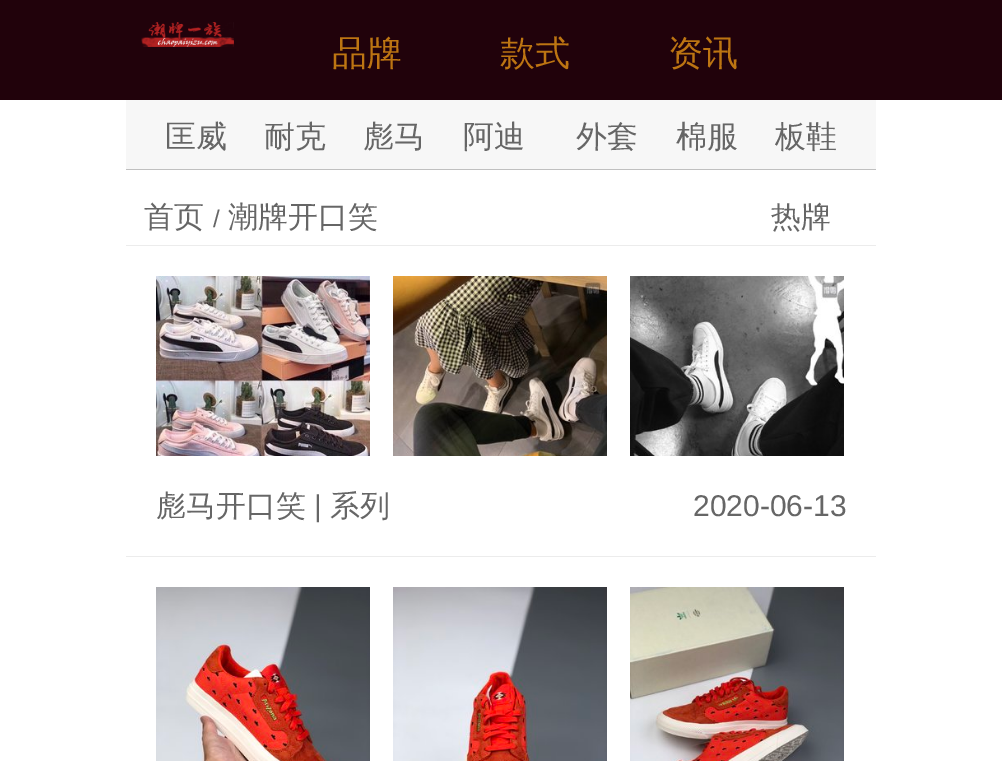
%!PS
<< /PageSize [1002 761] >> setpagedevice
/picture { 5 dict begin { /h /w /y /x /name } { exch def } forall
  gsave x y translate w h scale
  w h 8 [w 0 0 h 0 0] name (r) file false 3 colorimage grestore end } def
0 761 translate 1 -1 scale
4 setmiterlimit
1 setgray
0 0 1002 761 rectfill
0.129 0.008 0.043 setrgbcolor
0 0 1002 100 rectfill
(img1.rgb) 141 22 93 25 picture
/WenQuanYiZenHei-Medium [35 0 0 -35 0 0] selectfont
0.741 0.459 0.071 setrgbcolor
332 65 moveto (品牌) show
500 65 moveto (款式) show
668 65 moveto (资讯) show
0.969 setgray
126 100 750 69 rectfill
0.753 setgray
126 169 750 1 rectfill
/WenQuanYiZenHei-Medium [31 0 0 -31 0 0] selectfont
0.4 setgray
165 147 moveto (匡威) show
264 147 moveto (耐克) show
363 147 moveto (彪马) show
463 147 moveto (阿迪) show
576 147 moveto (外套) show
676 147 moveto (棉服) show
775 147 moveto (板鞋) show
0.925 setgray
126 245 750 1 rectfill
/WenQuanYiZenHei-Medium [30 0 0 -30 0 0] selectfont
0.4 setgray
144 227 moveto (首页) show
/LiberationSans-Regular [24 0 0 -24 0 0] selectfont
213 227 moveto (/) show
/WenQuanYiZenHei-Medium [30 0 0 -30 0 0] selectfont
228 227 moveto (潮牌开口笑) show
771 227 moveto (热牌) show
0.925 setgray
126 556 750 1 rectfill
(img2.rgb) 156 276 214 180 picture
(img3.rgb) 393 276 214 180 picture
(img4.rgb) 630 276 214 180 picture
0.4 setgray
156 516 moveto (彪马开口笑) show
/LiberationSans-Regular [30 0 0 -30 0 0] selectfont
314 516 moveto (|) show
/WenQuanYiZenHei-Medium [30 0 0 -30 0 0] selectfont
330 516 moveto (系列) show
/LiberationSans-Regular [30 0 0 -30 0 0] selectfont
693 516 moveto (2020-06-13) show
(img5.rgb) 156 587 214 174 picture
(img6.rgb) 393 587 214 174 picture
(img7.rgb) 630 587 214 174 picture
showpage
